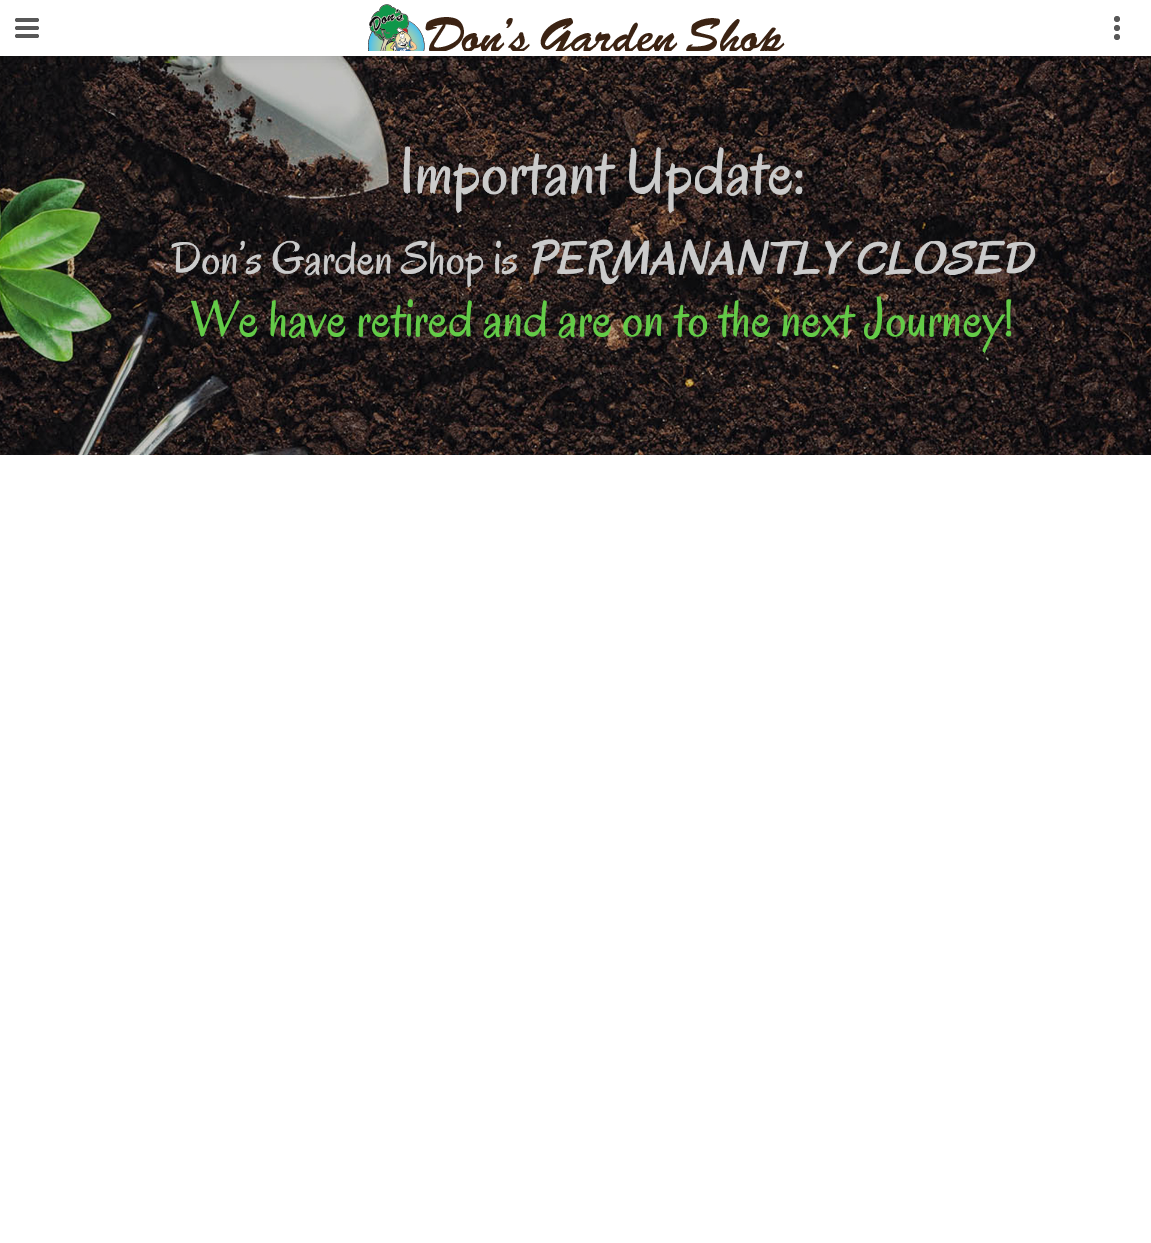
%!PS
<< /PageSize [1151 1243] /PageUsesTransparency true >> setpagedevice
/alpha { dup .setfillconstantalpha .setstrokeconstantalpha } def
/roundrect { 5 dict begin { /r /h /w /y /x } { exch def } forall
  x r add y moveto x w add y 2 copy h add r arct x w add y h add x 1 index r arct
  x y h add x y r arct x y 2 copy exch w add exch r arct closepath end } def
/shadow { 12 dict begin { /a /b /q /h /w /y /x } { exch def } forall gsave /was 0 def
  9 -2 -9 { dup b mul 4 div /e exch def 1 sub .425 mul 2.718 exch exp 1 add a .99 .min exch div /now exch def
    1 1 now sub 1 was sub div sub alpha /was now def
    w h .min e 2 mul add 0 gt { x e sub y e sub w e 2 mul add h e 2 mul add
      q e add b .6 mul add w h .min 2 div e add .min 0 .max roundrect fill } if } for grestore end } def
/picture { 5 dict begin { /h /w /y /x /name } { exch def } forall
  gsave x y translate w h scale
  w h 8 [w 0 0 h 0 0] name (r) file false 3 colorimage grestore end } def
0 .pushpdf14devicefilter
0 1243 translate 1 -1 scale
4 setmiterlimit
1 setgray
0 0 1151 1243 rectfill
(img2.rgb) 0 56 1151 399 picture
0 setgray
1 1 1149 54 0 6.5 0.17 shadow
1 setgray
0 0 1151 56 rectfill
0.345 setgray
newpath 37 30 moveto 17 30 lineto 16 30 15 29 15 28 curveto 15 27 16 26 17 26 curveto 37 26 lineto 38 26 39 27 39 28 curveto 39 29 38 30 37 30 curveto closepath 37 38 moveto 17 38 lineto 16 38 15 37 15 36 curveto 15 35 16 34 17 34 curveto 37 34 lineto 38 34 39 35 39 36 curveto 39 37 38 38 37 38 curveto closepath 37 22 moveto 17 22 lineto 16 22 15 21 15 20 curveto 15 19 16 18 17 18 curveto 37 18 lineto 38 18 39 19 39 20 curveto 39 21 38 22 37 22 curveto closepath fill
(img1.rgb) 368 4 417 47 picture
newpath 1117 28 3 0 360 arc closepath fill
newpath 1117 19 3 0 360 arc closepath fill
newpath 1117 37 3 0 360 arc closepath fill
.poppdf14devicefilter showpage
